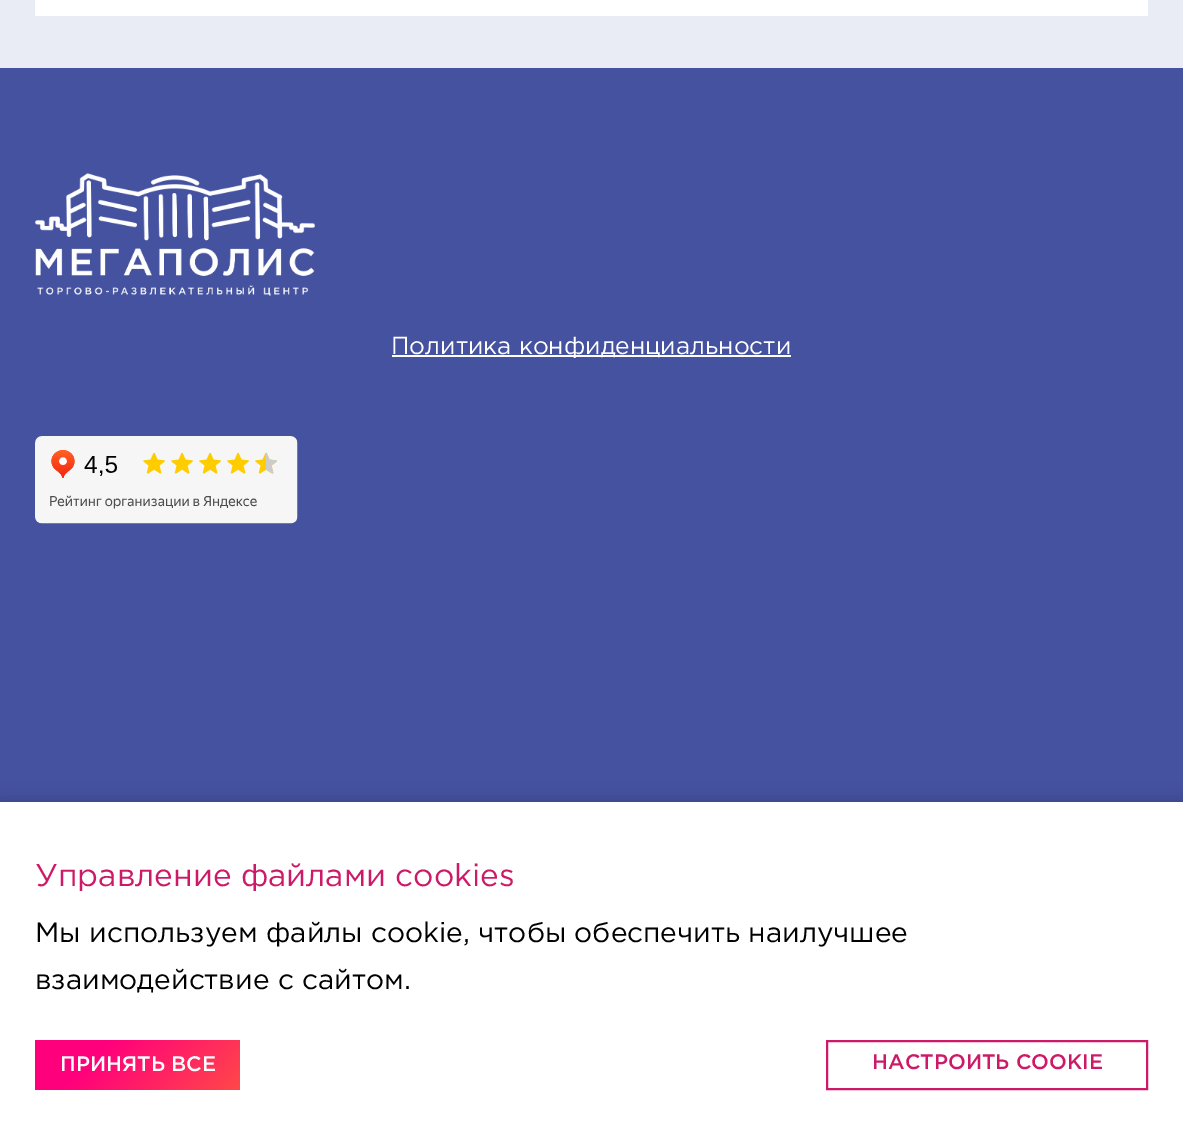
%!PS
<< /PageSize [1183 1142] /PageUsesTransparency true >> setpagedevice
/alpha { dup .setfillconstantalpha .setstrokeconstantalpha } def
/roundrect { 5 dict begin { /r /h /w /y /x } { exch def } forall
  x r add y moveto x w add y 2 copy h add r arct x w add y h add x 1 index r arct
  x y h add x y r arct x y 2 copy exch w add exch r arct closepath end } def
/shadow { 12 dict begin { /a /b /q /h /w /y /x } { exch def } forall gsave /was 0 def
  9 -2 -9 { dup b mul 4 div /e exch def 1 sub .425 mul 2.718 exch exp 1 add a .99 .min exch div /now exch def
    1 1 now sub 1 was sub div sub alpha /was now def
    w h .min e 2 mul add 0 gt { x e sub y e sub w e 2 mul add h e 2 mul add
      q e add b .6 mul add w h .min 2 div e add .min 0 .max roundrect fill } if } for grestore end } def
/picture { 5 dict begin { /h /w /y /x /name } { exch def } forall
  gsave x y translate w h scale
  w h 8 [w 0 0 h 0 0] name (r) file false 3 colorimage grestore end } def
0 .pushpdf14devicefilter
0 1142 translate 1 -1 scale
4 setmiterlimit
0.914 0.922 0.961 setrgbcolor
0 0 1183 1142 rectfill
1 setgray
35 0 1113 16 rectfill
0.271 0.322 0.624 setrgbcolor
0 68 1183 734 rectfill
(img1.rgb) 35 173 280 123 picture
1 setgray
392 355 399 2 rectfill
/Gotham-Regular [24.5 0 0 -24.5 0 0] selectfont
391 354 moveto (Политика конфиденциальности) show
(img2.rgb) 35 436 263 88 picture
0 setgray
0 802 1183 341 0 9 0.2 shadow
1 setgray
0 802 1183 340 rectfill
/Gotham-Regular [31.5 0 0 -31.5 0 0] selectfont
0.804 0.102 0.408 setrgbcolor
35 886 moveto (Управление файлами cookies) show
/Gotham-Regular [28 0 0 -28 0 0] selectfont
0 setgray
35 942 moveto (Мы используем файлы cookie, чтобы обеспечить наилучшее) show
35 989 moveto (взаимодействие с сайтом.) show
gsave 35 1040 205 50 2 roundrect clip newpath
<< /ShadingType 2 /ColorSpace /DeviceRGB /Coords [74 1001 201 1129] /Extend [true true] /Function << /FunctionType 3 /Domain [0 1] /Functions [<< /FunctionType 2 /Domain [0 1] /C0 [1 0 0.486] /C1 [1 0 0.486] /N 1 >> << /FunctionType 2 /Domain [0 1] /C0 [1 0 0.486] /C1 [1 0.282 0.282] /N 1 >>] /Bounds [0.3] /Encode [0 1 0 1] >> >> shfill grestore
/Gotham-Medium [21 0 0 -21 0 0] selectfont
1 setgray
60 1071 moveto (ПРИНЯТЬ ВСЕ) show
0.804 0.102 0.408 setrgbcolor
2 setlinewidth
827 1041 320 48 rectstroke
872 1069 moveto (НАСТРОИТЬ COOKIE) show
.poppdf14devicefilter showpage
